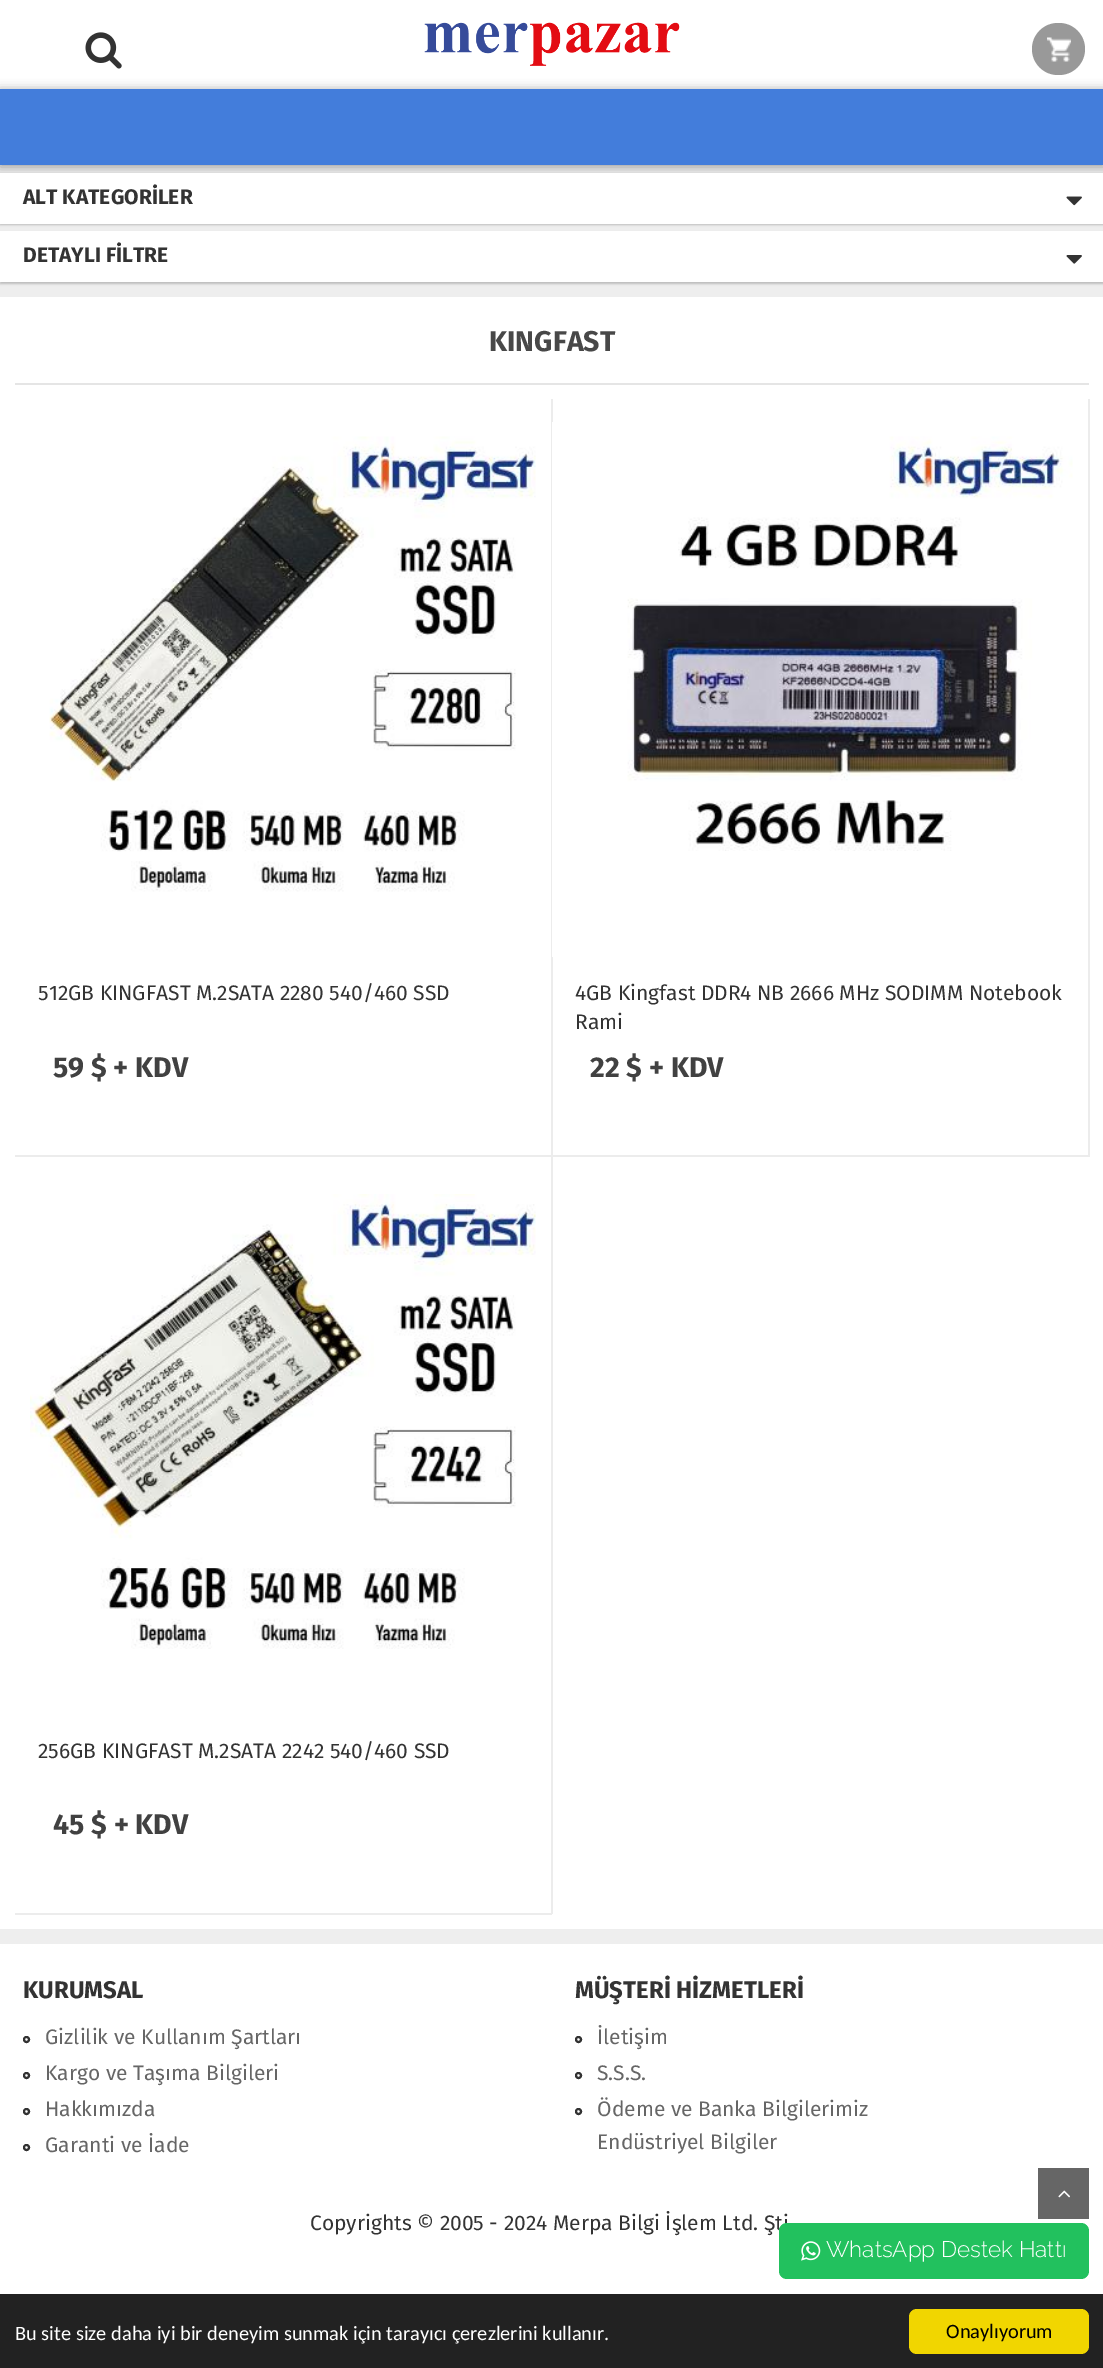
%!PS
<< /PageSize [1103 2368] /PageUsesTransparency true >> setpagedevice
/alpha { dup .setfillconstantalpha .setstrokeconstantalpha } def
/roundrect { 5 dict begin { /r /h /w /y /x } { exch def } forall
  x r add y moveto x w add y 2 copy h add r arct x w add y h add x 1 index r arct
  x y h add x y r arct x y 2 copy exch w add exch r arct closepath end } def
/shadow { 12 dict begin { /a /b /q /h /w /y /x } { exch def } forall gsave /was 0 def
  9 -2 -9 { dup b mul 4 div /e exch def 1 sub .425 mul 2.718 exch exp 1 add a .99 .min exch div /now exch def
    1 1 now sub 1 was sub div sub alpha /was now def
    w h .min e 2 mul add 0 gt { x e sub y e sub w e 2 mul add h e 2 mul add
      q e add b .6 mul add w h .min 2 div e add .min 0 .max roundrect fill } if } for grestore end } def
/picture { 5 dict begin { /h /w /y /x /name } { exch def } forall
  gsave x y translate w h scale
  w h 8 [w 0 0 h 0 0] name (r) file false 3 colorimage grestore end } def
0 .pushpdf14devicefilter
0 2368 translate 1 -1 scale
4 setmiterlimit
0.933 setgray
0 0 1103 2368 rectfill
1 setgray
0 0 1103 89 rectfill
(img1.rgb) 85 32 37 37 picture
(img2.rgb) 424 22 256 44 picture
0.612 setgray
0 90 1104 77 0 5 1 shadow
0.6 setgray
1032 23 53 52 26 roundrect fill
(img3.rgb) 1047 37 24 25 picture
0.263 0.49 0.859 setrgbcolor
0 89 1103 76 rectfill
0 setgray
0 174 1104 51 0 1 0.2 shadow
1 setgray
0 173 1103 51 rectfill
/FiraSans-Bold [21 0 0 -21 0 0] selectfont
0.2 setgray
23 204 moveto (ALT KATEGORİLER) show
(img4.rgb) 1066 196 16 10 picture
0 setgray
0 233 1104 51 0 1 0.2 shadow
1 setgray
0 231 1103 51 rectfill
0.2 setgray
23 262 moveto (DETAYLI FİLTRE) show
(img5.rgb) 1066 255 16 9 picture
1 setgray
0 297 1103 1632 rectfill
0.898 setgray
15 383 1074 2 rectfill
/FiraSans-Bold [28.5 0 0 -28.5 0 0] selectfont
0.282 setgray
489 351 moveto (KINGFAST) show
0.925 setgray
551 399 2 1515 rectfill
15 1155 537 2 rectfill
(img6.rgb) 49 436 487 456 picture
/FiraSans-Regular [21 0 0 -21 0 0] selectfont
0.2 setgray
38 1000 moveto (512GB KINGFAST M.2SATA 2280 540/460 SSD) show
/FiraSans-Bold [28.5 0 0 -28.5 0 0] selectfont
0.255 setgray
53 1077 moveto (59 $ + KDV) show
0.925 setgray
1088 399 2 758 rectfill
552 1155 537 2 rectfill
1 setgray
552 422 1 535 rectfill
(img7.rgb) 627 436 446 415 picture
/FiraSans-Regular [21 0 0 -21 0 0] selectfont
0.2 setgray
575 1000 moveto (4GB Kingfast DDR4 NB 2666 MHz SODIMM Notebook) show
575 1029 moveto (Rami) show
/FiraSans-Bold [28.5 0 0 -28.5 0 0] selectfont
0.255 setgray
590 1077 moveto (22 $ + KDV) show
0.925 setgray
15 1913 537 2 rectfill
(img8.rgb) 30 1194 506 455 picture
/FiraSans-Regular [21 0 0 -21 0 0] selectfont
0.2 setgray
38 1758 moveto (256GB KINGFAST M.2SATA 2242 540/460 SSD) show
/FiraSans-Bold [28.5 0 0 -28.5 0 0] selectfont
0.255 setgray
53 1834 moveto (45 $ + KDV) show
1 setgray
0 1944 1103 350 rectfill
/FiraSans-Bold [24 0 0 -24 0 0] selectfont
0.2 setgray
23 1998 moveto (KURUMSAL) show
2 setlinewidth
newpath 26.5 2039.5 2.5 0 360 arc closepath stroke
/FiraSans-Regular [21 0 0 -21 0 0] selectfont
0.4 setgray
45 2044 moveto (Gizlilik ve Kullanım Şartları) show
0.2 setgray
newpath 26.5 2075.5 2.5 0 360 arc closepath stroke
0.4 setgray
45 2080 moveto (Kargo ve Taşıma Bilgileri) show
0.2 setgray
newpath 26.5 2111.5 2.5 0 360 arc closepath stroke
0.4 setgray
45 2116 moveto (Hakkımızda) show
0.2 setgray
newpath 26.5 2147.5 2.5 0 360 arc closepath stroke
0.4 setgray
45 2152 moveto (Garanti ve İade) show
/FiraSans-Bold [24 0 0 -24 0 0] selectfont
0.2 setgray
575 1998 moveto (MÜŞTERİ HİZMETLERİ) show
newpath 578.5 2039.5 2.5 0 360 arc closepath stroke
/FiraSans-Regular [21 0 0 -21 0 0] selectfont
0.4 setgray
597 2044 moveto (İletişim) show
0.2 setgray
newpath 578.5 2075.5 2.5 0 360 arc closepath stroke
0.4 setgray
597 2080 moveto (S.S.S.) show
0.2 setgray
newpath 578.5 2111.5 2.5 0 360 arc closepath stroke
0.4 setgray
597 2116 moveto (Ödeme ve Banka Bilgilerimiz) show
597 2149 moveto (Endüstriyel Bilgiler) show
0.2 setgray
310 2230 moveto (Copyrights © 2005 - 2024 Merpa Bilgi İşlem Ltd. Şti) show
0.4 setgray
1038 2168 51 51 rectfill
(img9.rgb) 1058 2190 12 8 picture
0.133 0.757 0.369 setrgbcolor
779 2223 310 56 8 roundrect fill
(img10.rgb) 801 2241 20 20 picture
/Raleway-Light [22.5 0 0 -22.5 0 0] selectfont
1 setgray
826 2257 moveto (WhatsApp Destek Hattı) show
0.133 setgray
0 2294 1103 74 rectfill
/Carlito-Regular [20.4 0 0 -20.4 0 0] selectfont
1 setgray
15 2340 moveto (Bu site size daha iyi bir deneyim sunmak için tarayıcı çerezlerini kullanır.) show
0.945 0.839 0 setrgbcolor
909 2309 180 45 8 roundrect fill
0 setgray
946 2338 moveto (Onaylıyorum) show
.poppdf14devicefilter showpage
